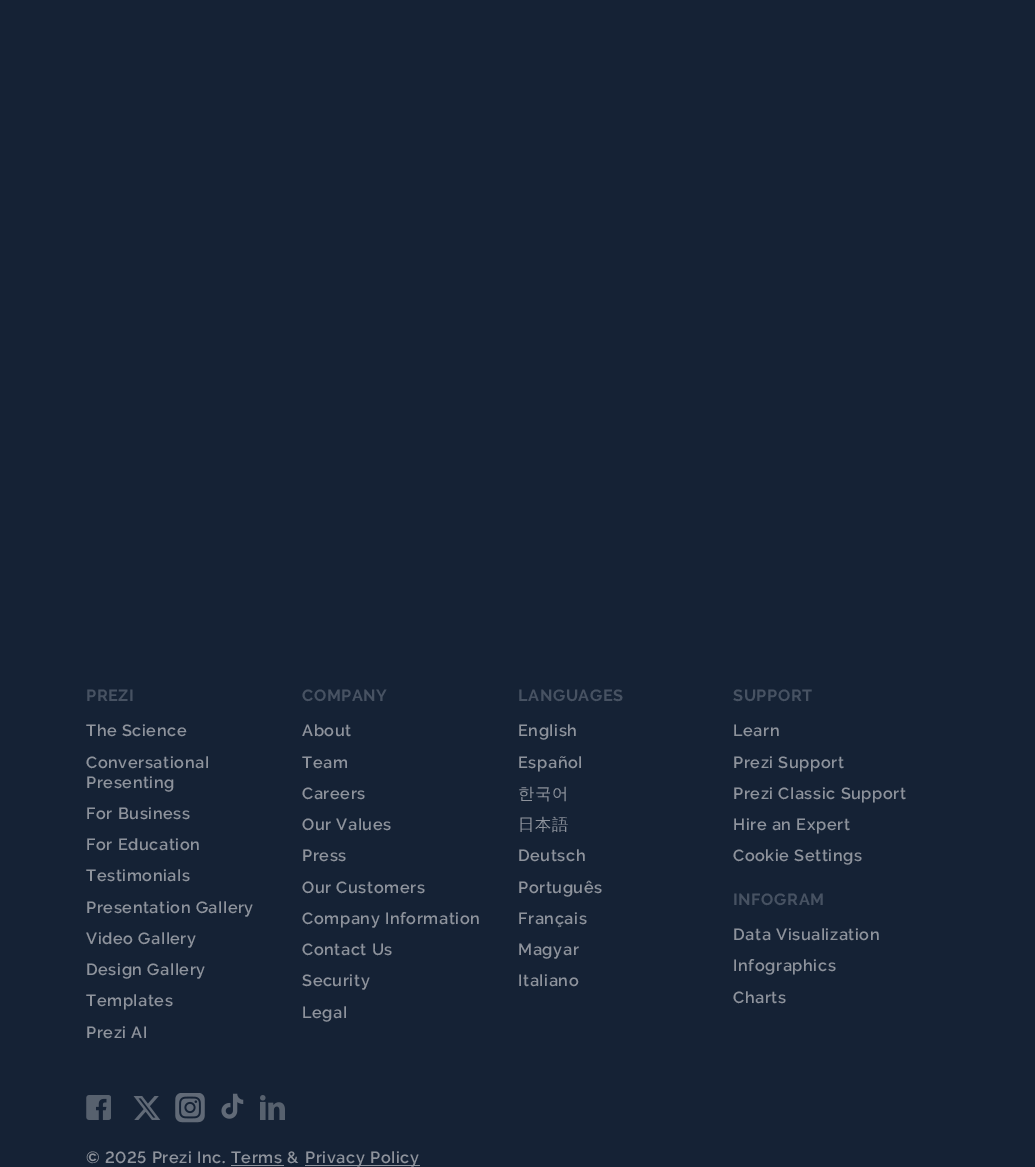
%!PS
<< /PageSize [1035 1167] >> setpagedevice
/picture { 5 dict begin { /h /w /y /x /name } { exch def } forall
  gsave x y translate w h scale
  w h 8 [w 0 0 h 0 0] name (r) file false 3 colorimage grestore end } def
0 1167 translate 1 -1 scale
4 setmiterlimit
0.082 0.133 0.208 setrgbcolor
0 0 1035 1167 rectfill
/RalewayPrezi-Bold [16.25 0 0 -16.25 0 0] selectfont
0.278 0.322 0.384 setrgbcolor
86 701 moveto 0.6 0 (PREZI) ashow
/RalewayPrezi-SemiBold [16.25 0 0 -16.25 0 0] selectfont
0.557 0.576 0.612 setrgbcolor
86 736 moveto 0.6 0 (The Science) ashow
86 768 moveto 0.6 0 (Conversational) ashow
86 788 moveto 0.6 0 (Presenting) ashow
86 819 moveto 0.6 0 (For Business) ashow
86 850 moveto 0.6 0 (For Education) ashow
86 881 moveto 0.6 0 (Testimonials) ashow
86 913 moveto 0.6 0 (Presentation Gallery) ashow
86 944 moveto 0.6 0 (Video Gallery) ashow
86 975 moveto 0.6 0 (Design Gallery) ashow
86 1006 moveto 0.6 0 (Templates) ashow
86 1038 moveto 0.6 0 (Prezi AI) ashow
/RalewayPrezi-Bold [16.25 0 0 -16.25 0 0] selectfont
0.278 0.322 0.384 setrgbcolor
302 701 moveto 0.6 0 (COMPANY) ashow
/RalewayPrezi-SemiBold [16.25 0 0 -16.25 0 0] selectfont
0.557 0.576 0.612 setrgbcolor
302 736 moveto 0.6 0 (About) ashow
302 768 moveto 0.6 0 (Team) ashow
302 799 moveto 0.6 0 (Careers) ashow
302 830 moveto 0.6 0 (Our Values) ashow
302 861 moveto 0.6 0 (Press) ashow
302 893 moveto 0.6 0 (Our Customers) ashow
302 924 moveto 0.6 0 (Company Information) ashow
302 955 moveto 0.6 0 (Contact Us) ashow
302 986 moveto 0.6 0 (Security) ashow
302 1018 moveto 0.6 0 (Legal) ashow
/RalewayPrezi-Bold [16.25 0 0 -16.25 0 0] selectfont
0.278 0.322 0.384 setrgbcolor
518 701 moveto 0.6 0 (LANGUAGES) ashow
/RalewayPrezi-SemiBold [16.25 0 0 -16.25 0 0] selectfont
0.557 0.576 0.612 setrgbcolor
518 736 moveto 0.6 0 (English) ashow
518 768 moveto 0.6 0 (Español) ashow
/WenQuanYiZenHei-Medium [16.25 0 0 -16.25 0 0] selectfont
518 799 moveto 0.6 0 (한국어) ashow
518 830 moveto 0.6 0 (日本語) ashow
/RalewayPrezi-SemiBold [16.25 0 0 -16.25 0 0] selectfont
518 861 moveto 0.6 0 (Deutsch) ashow
518 893 moveto 0.6 0 (Português) ashow
518 924 moveto 0.6 0 (Français) ashow
518 955 moveto 0.6 0 (Magyar) ashow
518 986 moveto 0.6 0 (Italiano) ashow
/RalewayPrezi-Bold [16.25 0 0 -16.25 0 0] selectfont
0.278 0.322 0.384 setrgbcolor
733 701 moveto 0.6 0 (SUPPORT) ashow
/RalewayPrezi-SemiBold [16.25 0 0 -16.25 0 0] selectfont
0.557 0.576 0.612 setrgbcolor
733 736 moveto 0.6 0 (Learn) ashow
733 768 moveto 0.6 0 (Prezi Support) ashow
733 799 moveto 0.6 0 (Prezi Classic Support) ashow
733 830 moveto 0.6 0 (Hire an Expert) ashow
733 861 moveto 0.6 0 (Cookie Settings) ashow
/RalewayPrezi-Bold [16.25 0 0 -16.25 0 0] selectfont
0.278 0.322 0.384 setrgbcolor
733 905 moveto 0.6 0 (INFOGRAM) ashow
/RalewayPrezi-SemiBold [16.25 0 0 -16.25 0 0] selectfont
0.557 0.576 0.612 setrgbcolor
733 940 moveto 0.6 0 (Data Visualization) ashow
733 971 moveto 0.6 0 (Infographics) ashow
733 1003 moveto 0.6 0 (Charts) ashow
(img1.rgb) 86 1095 25 25 picture
(img2.rgb) 133 1096 28 24 picture
(img3.rgb) 175 1093 30 30 picture
(img4.rgb) 221 1093 23 26 picture
(img5.rgb) 260 1095 25 25 picture
86 1163 moveto 0.6 0 (© 2025 Prezi Inc. Terms &) ashow
305 1165 115 1 rectfill
305 1163 moveto 0.6 0 (Privacy Policy) ashow
231 1165 53 1 rectfill
showpage
